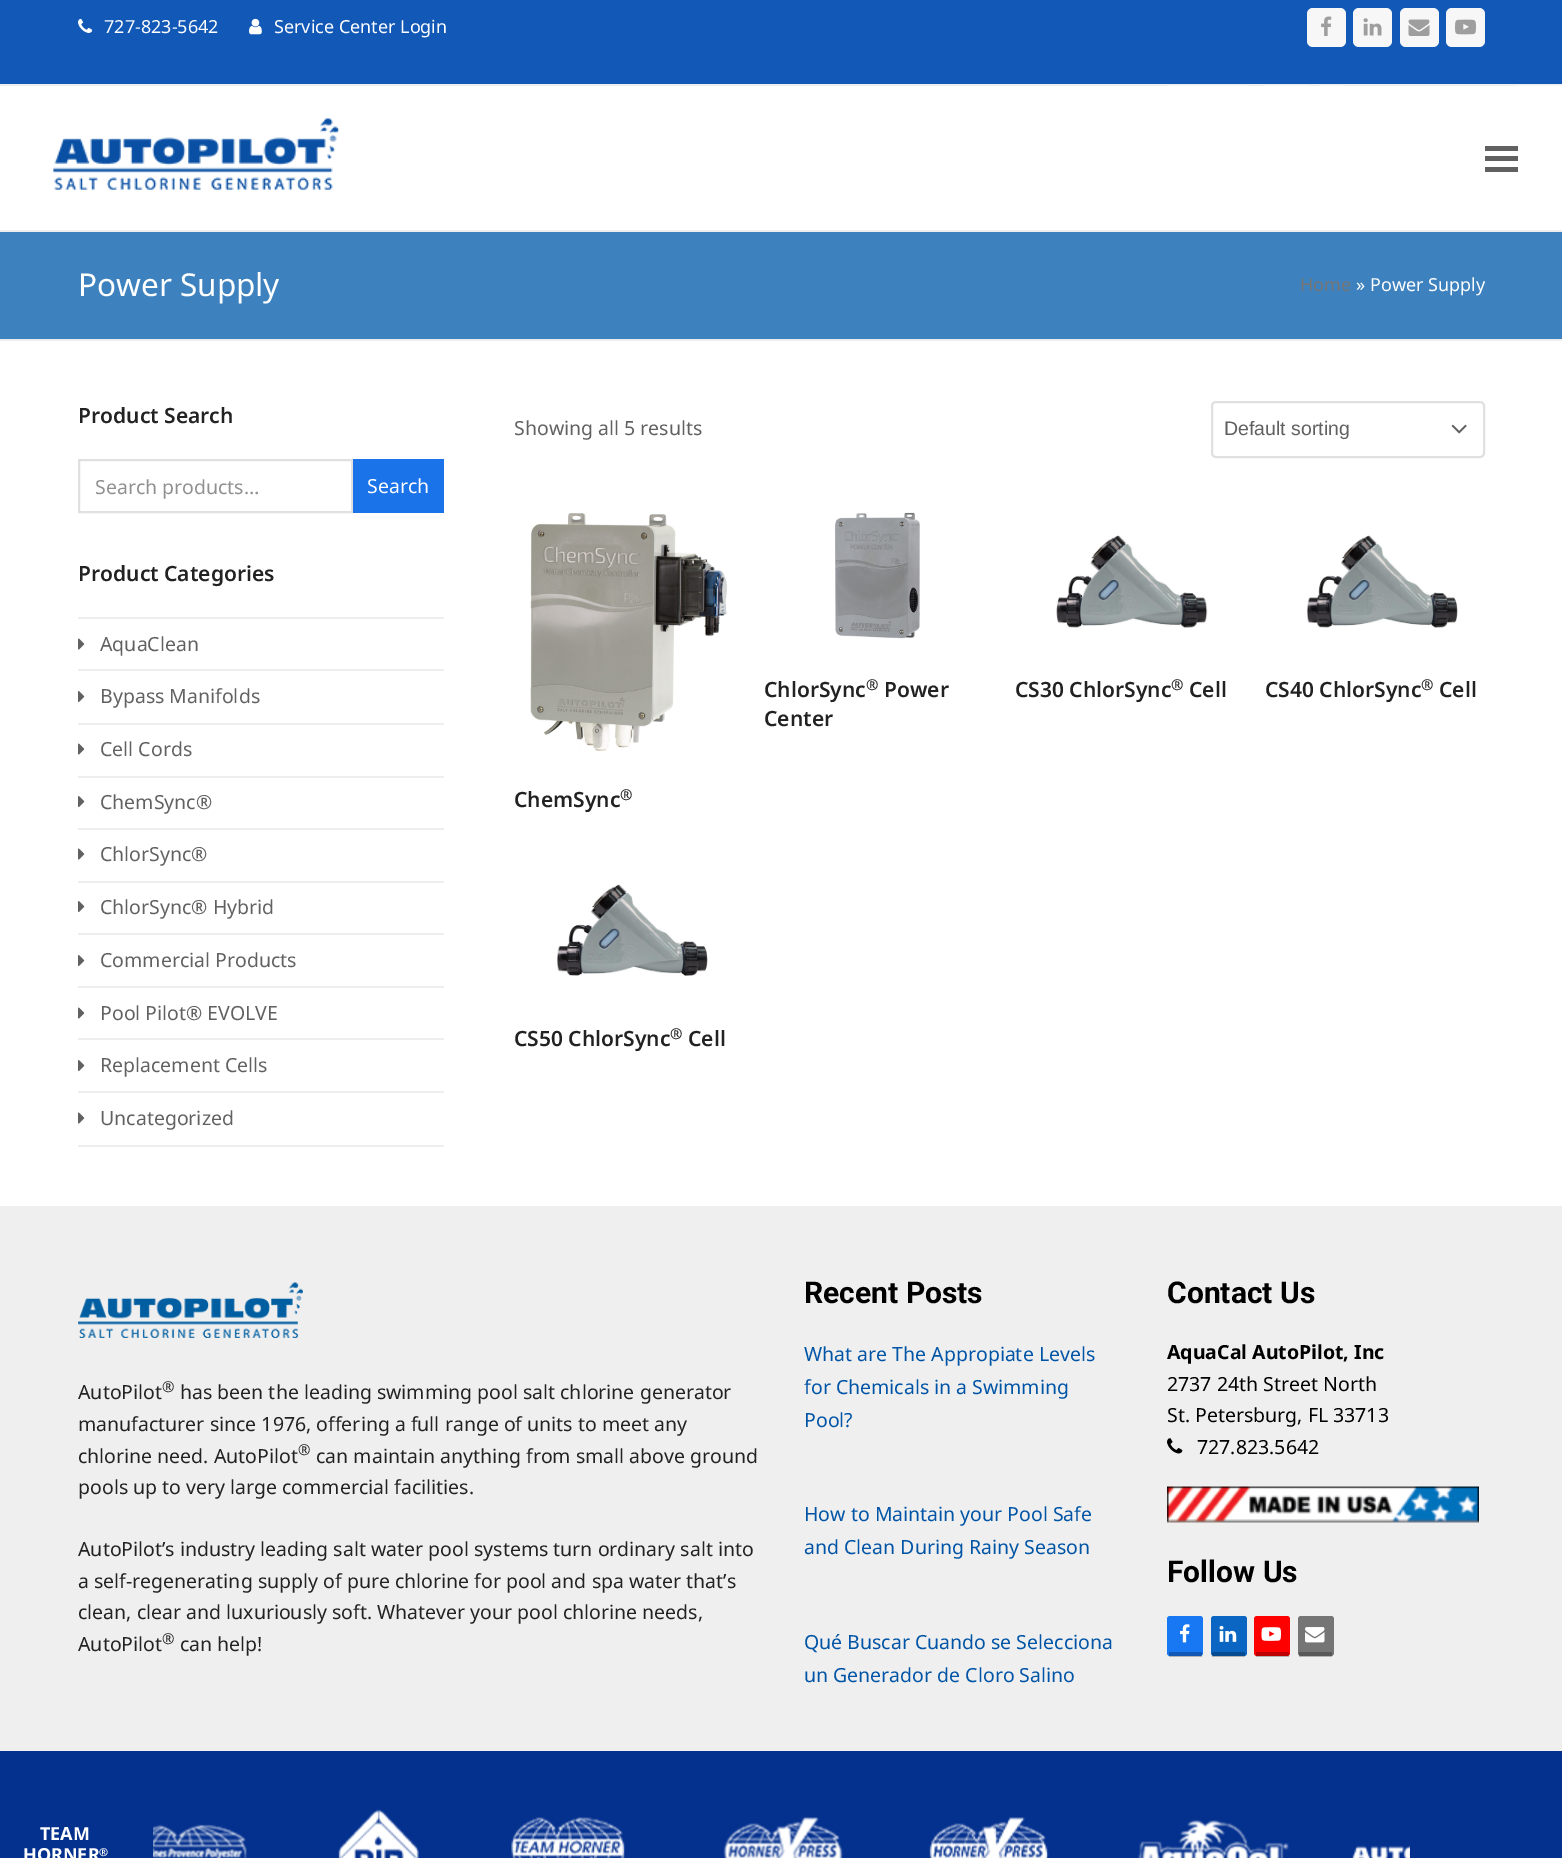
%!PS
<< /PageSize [1562 1858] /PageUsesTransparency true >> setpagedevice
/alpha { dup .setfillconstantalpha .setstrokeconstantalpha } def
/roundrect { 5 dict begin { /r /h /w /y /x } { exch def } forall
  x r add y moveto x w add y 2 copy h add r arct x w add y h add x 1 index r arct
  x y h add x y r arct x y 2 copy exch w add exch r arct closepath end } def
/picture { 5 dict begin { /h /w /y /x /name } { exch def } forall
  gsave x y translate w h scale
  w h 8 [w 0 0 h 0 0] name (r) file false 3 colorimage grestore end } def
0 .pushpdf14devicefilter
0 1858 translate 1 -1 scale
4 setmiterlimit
1 setgray
0 0 1562 1858 rectfill
0.071 0.349 0.718 setrgbcolor
0 0 1562 84 rectfill
0.933 setgray
0 84 1562 2 rectfill
(img1.rgb) 78 18 15 15 picture
/NotoSans-Regular [18 0 0 -18 0 0] selectfont
1 setgray
104 33 moveto (727-823-5642) show
(img2.rgb) 249 18 13 17 picture
274 33 moveto (Service Center Login) show
0.969 setgray
1307 8 39 39 6 roundrect fill
(img3.rgb) 1321 16 11 20 picture
1353 8 39 39 6 roundrect fill
(img4.rgb) 1363 18 19 18 picture
1400 8 39 39 6 roundrect fill
(img5.rgb) 1408 19 22 17 picture
1446 8 39 39 6 roundrect fill
(img6.rgb) 1455 19 21 16 picture
(img7.rgb) 1167 85 395 1 picture
(img8.rgb) 53 118 286 72 picture
0.38 setgray
1485 156 33 5 rectfill
1485 146 33 5 rectfill
1485 167 33 5 rectfill
0.239 0.51 0.749 setrgbcolor
0 232 1562 107 rectfill
0.933 setgray
0 230 1562 2 rectfill
0 339 1562 2 rectfill
/NotoSans-Regular [31.5 0 0 -31.5 0 0] selectfont
1 setgray
78 296 moveto (Power Supply) show
/NotoSans-Regular [18 0 0 -18 0 0] selectfont
0.459 setgray
1300 291 moveto (Home) show
1 setgray
1356 291 moveto (» Power Supply) show
/NotoSans-SemiBold [21 0 0 -21 0 0] selectfont
0.133 setgray
78 423 moveto (Product Search) show
0.878 setgray
2 setlinewidth
79 460 273 52 rectstroke
/NotoSans-Regular [19.5 0 0 -19.5 0 0] selectfont
0.565 setgray
95 494 moveto (Search products…) show
0.102 0.451 0.91 setrgbcolor
353 459 91 54 rectfill
1 setgray
367 493 moveto (Search) show
/NotoSans-SemiBold [21 0 0 -21 0 0] selectfont
0.133 setgray
78 581 moveto (Product Categories) show
0.933 setgray
78 617 366 2 rectfill
78 669 366 2 rectfill
(img9.rgb) 78 638 7 12 picture
/NotoSans-Regular [19.5 0 0 -19.5 0 0] selectfont
0.38 setgray
100 651 moveto (AquaClean) show
0.933 setgray
78 723 366 2 rectfill
(img10.rgb) 78 691 7 12 picture
0.38 setgray
100 703 moveto (Bypass Manifolds) show
0.933 setgray
78 776 366 2 rectfill
(img9.rgb) 78 743 7 12 picture
0.38 setgray
100 756 moveto (Cell Cords) show
0.933 setgray
78 828 366 2 rectfill
(img10.rgb) 78 796 7 12 picture
0.38 setgray
100 809 moveto (ChemSync®) show
0.933 setgray
78 881 366 2 rectfill
(img9.rgb) 78 848 7 12 picture
0.38 setgray
100 861 moveto (ChlorSync®) show
0.933 setgray
78 933 366 2 rectfill
(img10.rgb) 78 901 7 12 picture
0.38 setgray
100 914 moveto (ChlorSync® Hybrid) show
0.933 setgray
78 986 366 2 rectfill
(img10.rgb) 78 955 7 12 picture
0.38 setgray
100 967 moveto (Commercial Products) show
0.933 setgray
78 1038 366 2 rectfill
(img9.rgb) 78 1007 7 12 picture
0.38 setgray
100 1020 moveto (Pool Pilot® EVOLVE) show
0.933 setgray
78 1091 366 2 rectfill
(img10.rgb) 78 1060 7 12 picture
0.38 setgray
100 1072 moveto (Replacement Cells) show
0.933 setgray
78 1145 366 2 rectfill
(img9.rgb) 78 1112 7 12 picture
0.38 setgray
100 1125 moveto (Uncategorized) show
514 435 moveto (Showing all 5 results) show
0.878 setgray
1212 402 272 55 4 roundrect stroke
/LiberationSans-Regular [19.5 0 0 -19.5 0 0] selectfont
0.38 setgray
1224 435 moveto (Default sorting) show
(img11.rgb) 1451 424 16 10 picture
(img12.rgb) 834 512 86 127 picture
/NotoSans-SemiBold [21 0 0 -21 0 0] selectfont
0.133 setgray
764 697 moveto (ChlorSync) show
/NotoSans-SemiBold [15 0 0 -15 0 0] selectfont
866 690 moveto (®) show
/NotoSans-SemiBold [21 0 0 -21 0 0] selectfont
884 697 moveto (Power) show
764 726 moveto (Center) show
(img13.rgb) 1056 507 152 139 picture
1015 697 moveto (CS30 ChlorSync) show
/NotoSans-SemiBold [15 0 0 -15 0 0] selectfont
1171 690 moveto (®) show
/NotoSans-SemiBold [21 0 0 -21 0 0] selectfont
1189 697 moveto (Cell) show
(img14.rgb) 1306 506 152 140 picture
1265 697 moveto (CS40 ChlorSync) show
/NotoSans-SemiBold [15 0 0 -15 0 0] selectfont
1421 690 moveto (®) show
/NotoSans-SemiBold [21 0 0 -21 0 0] selectfont
1439 697 moveto (Cell) show
(img15.rgb) 530 513 198 238 picture
514 807 moveto (ChemSync) show
/NotoSans-SemiBold [15 0 0 -15 0 0] selectfont
620 800 moveto (®) show
(img16.rgb) 556 856 152 138 picture
/NotoSans-SemiBold [21 0 0 -21 0 0] selectfont
514 1046 moveto (CS50 ChlorSync) show
/NotoSans-SemiBold [15 0 0 -15 0 0] selectfont
670 1039 moveto (®) show
/NotoSans-SemiBold [21 0 0 -21 0 0] selectfont
688 1046 moveto (Cell) show
0.937 setgray
0 1206 1562 545 rectfill
(img17.rgb) 78 1282 225 56 picture
/NotoSans-Regular [19.5 0 0 -19.5 0 0] selectfont
0.133 setgray
78 1399 moveto (AutoPilot) show
/NotoSans-Regular [15 0 0 -15 0 0] selectfont
162 1392 moveto (®) show
/NotoSans-Regular [19.5 0 0 -19.5 0 0] selectfont
180 1399 moveto (has been the leading swimming pool salt chlorine generator) show
78 1431 moveto (manufacturer since 1976, offering a full range of units to meet any) show
78 1463 moveto (chlorine need. AutoPilot) show
/NotoSans-Regular [15 0 0 -15 0 0] selectfont
298 1455 moveto (®) show
/NotoSans-Regular [19.5 0 0 -19.5 0 0] selectfont
316 1463 moveto (can maintain anything from small above ground) show
78 1494 moveto (pools up to very large commercial facilities.) show
78 1556 moveto (AutoPilot’s industry leading salt water pool systems turn ordinary salt into) show
78 1588 moveto (a self-regenerating supply of pure chlorine for pool and spa water that’s) show
78 1619 moveto (clean, clear and luxuriously soft. Whatever your pool chlorine needs,) show
78 1651 moveto (AutoPilot) show
/NotoSans-Regular [15 0 0 -15 0 0] selectfont
162 1644 moveto (®) show
/NotoSans-Regular [19.5 0 0 -19.5 0 0] selectfont
180 1651 moveto (can help!) show
/Roboto-Bold [30 0 0 -30 0 0] selectfont
0 setgray
804 1303 moveto (Recent Posts) show
/NotoSans-Regular [19.5 0 0 -19.5 0 0] selectfont
0 0.329 0.651 setrgbcolor
804 1361 moveto (What are The Appropiate Levels) show
804 1394 moveto (for Chemicals in a Swimming) show
804 1427 moveto (Pool?) show
804 1521 moveto (How to Maintain your Pool Safe) show
804 1554 moveto (and Clean During Rainy Season) show
804 1649 moveto (Qué Buscar Cuando se Selecciona) show
804 1682 moveto (un Generador de Cloro Salino) show
/Roboto-Bold [30 0 0 -30 0 0] selectfont
0 setgray
1167 1303 moveto (Contact Us) show
/NotoSans-Bold [19.5 0 0 -19.5 0 0] selectfont
1167 1359 moveto (AquaCal AutoPilot, Inc) show
/NotoSans-Regular [19.5 0 0 -19.5 0 0] selectfont
1167 1391 moveto (2737 24th Street North) show
1167 1422 moveto (St. Petersburg, FL 33713) show
(img18.rgb) 1167 1438 16 16 picture
1197 1454 moveto (727.823.5642) show
(img19.rgb) 1167 1486 312 37 picture
/Roboto-Bold [30 0 0 -30 0 0] selectfont
1167 1582 moveto (Follow Us) show
0.094 0.467 0.949 setrgbcolor
1167 1616 36 40 3 roundrect fill
0.25 alpha
0 setgray
1169 1652 33 5 rectfill
1 alpha
(img20.rgb) 1180 1624 10 19 picture
0.039 0.4 0.761 setrgbcolor
1211 1616 36 40 3 roundrect fill
0.25 alpha
0 setgray
1212 1652 33 5 rectfill
1 alpha
(img21.rgb) 1219 1625 18 17 picture
1 0 0 setrgbcolor
1254 1616 36 40 3 roundrect fill
0.25 alpha
0 setgray
1256 1652 33 5 rectfill
1 alpha
(img22.rgb) 1261 1627 20 14 picture
0.459 setgray
1298 1616 36 40 3 roundrect fill
0.25 alpha
0 setgray
1299 1652 33 5 rectfill
1 alpha
(img23.rgb) 1305 1627 20 16 picture
0.016 0.188 0.557 setrgbcolor
0 1751 1562 107 rectfill
/NotoSans-Bold [18 0 0 -18 0 0] selectfont
1 setgray
40 1840 moveto (TEAM) show
23 1861 moveto (HORNER) show
/NotoSans-Bold [11 0 0 -11 0 0] selectfont
99 1856 moveto (®) show
(img24.rgb) 153 1824 94 34 picture
(img25.rgb) 338 1809 81 49 picture
(img26.rgb) 511 1817 114 41 picture
(img27.rgb) 723 1817 120 41 picture
(img28.rgb) 929 1817 120 41 picture
(img29.rgb) 1138 1820 151 38 picture
(img30.rgb) 1352 1845 58 13 picture
.poppdf14devicefilter showpage
